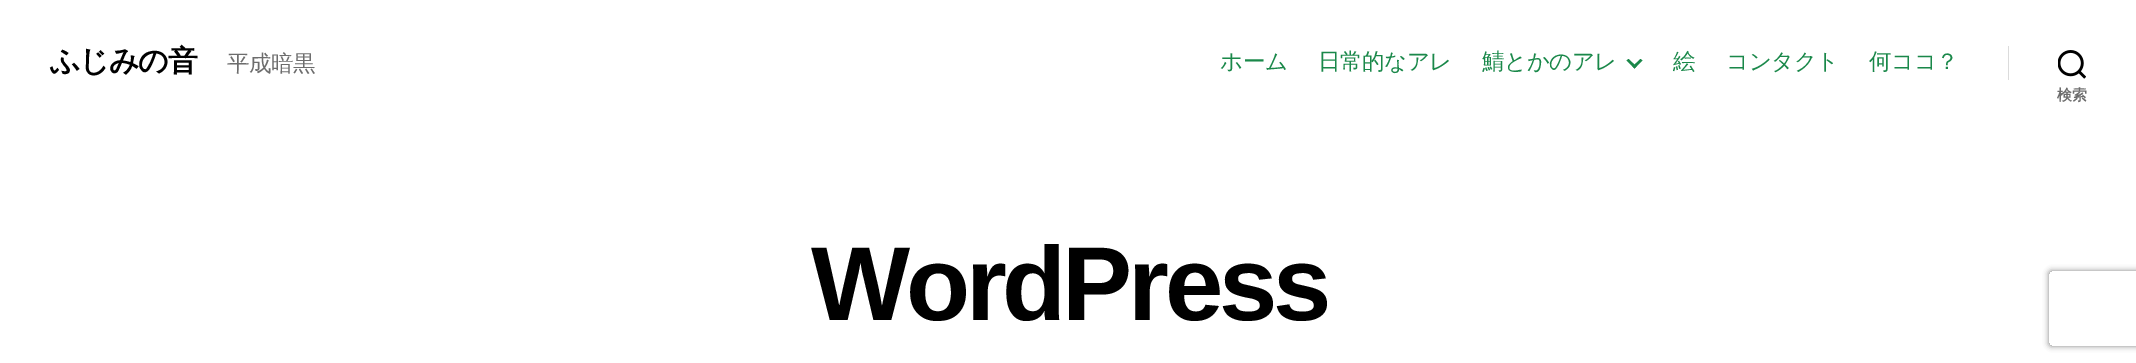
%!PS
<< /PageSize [2136 363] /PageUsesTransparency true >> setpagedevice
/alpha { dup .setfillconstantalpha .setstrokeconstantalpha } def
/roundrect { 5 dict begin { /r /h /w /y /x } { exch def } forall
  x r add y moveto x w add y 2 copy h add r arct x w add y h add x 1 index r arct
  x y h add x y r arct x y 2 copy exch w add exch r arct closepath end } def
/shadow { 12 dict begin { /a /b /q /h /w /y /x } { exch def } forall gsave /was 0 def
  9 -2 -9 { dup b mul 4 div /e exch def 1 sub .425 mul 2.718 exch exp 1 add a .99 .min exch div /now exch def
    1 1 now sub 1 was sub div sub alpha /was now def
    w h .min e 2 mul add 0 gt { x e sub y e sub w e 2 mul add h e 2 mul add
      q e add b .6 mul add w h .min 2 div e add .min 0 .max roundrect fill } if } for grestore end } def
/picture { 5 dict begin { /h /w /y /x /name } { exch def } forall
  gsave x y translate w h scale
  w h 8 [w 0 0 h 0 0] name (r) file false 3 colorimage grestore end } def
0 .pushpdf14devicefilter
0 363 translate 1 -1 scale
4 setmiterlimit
1 setgray
0 0 2136 363 rectfill
/WenQuanYiZenHei-Bold [30 0 0 -30 0 0] selectfont
0 setgray
50 71 moveto -1.25 0 (ふじみの音) ashow
/WenQuanYiZenHei-Medium [22.5 0 0 -22.5 0 0] selectfont
0.427 setgray
227 71 moveto -0.5 0 (平成暗黒) ashow
0.102 0.533 0.29 setrgbcolor
1220 69 moveto -0.5 0 (ホーム) ashow
1318 69 moveto -0.5 0 (日常的なアレ) ashow
1482 69 moveto -0.5 0 (鯖とかのアレ) ashow
newpath 1626.5 60.5 moveto 1628.5 59 lineto 1636.5 66.5 lineto 1634.5 68.5 lineto closepath fill
newpath 1632.5 66.5 moveto 1640.5 59 lineto 1642.5 60.5 lineto 1634.5 68.5 lineto closepath fill
1673 69 moveto -0.5 0 (絵) ashow
1726 69 moveto -0.5 0 (コンタクト) ashow
1869 69 moveto -0.5 0 (何ココ？) ashow
0.859 setgray
2008 46 1 34 rectfill
(img1.rgb) 2058 50 28 29 picture
/WenQuanYiZenHei-Bold [15 0 0 -15 0 0] selectfont
0.427 setgray
2057 100 moveto (検索) show
/LiberationSans-Bold [105 0 0 -105 0 0] selectfont
0 setgray
811 320 moveto -4.25 0 (WordPress) ashow
gsave
newpath 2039 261 moveto 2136 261 lineto 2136 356 lineto 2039 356 lineto closepath 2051.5 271 moveto 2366.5 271 lineto 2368 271 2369 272 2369 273.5 curveto 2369 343.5 lineto 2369 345 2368 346 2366.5 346 curveto 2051.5 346 lineto 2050 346 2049 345 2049 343.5 curveto 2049 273.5 lineto 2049 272 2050 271 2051.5 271 curveto closepath eoclip newpath
0.502 setgray
2049 271 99 75 2.5 3 1 shadow
grestore
.poppdf14devicefilter showpage
